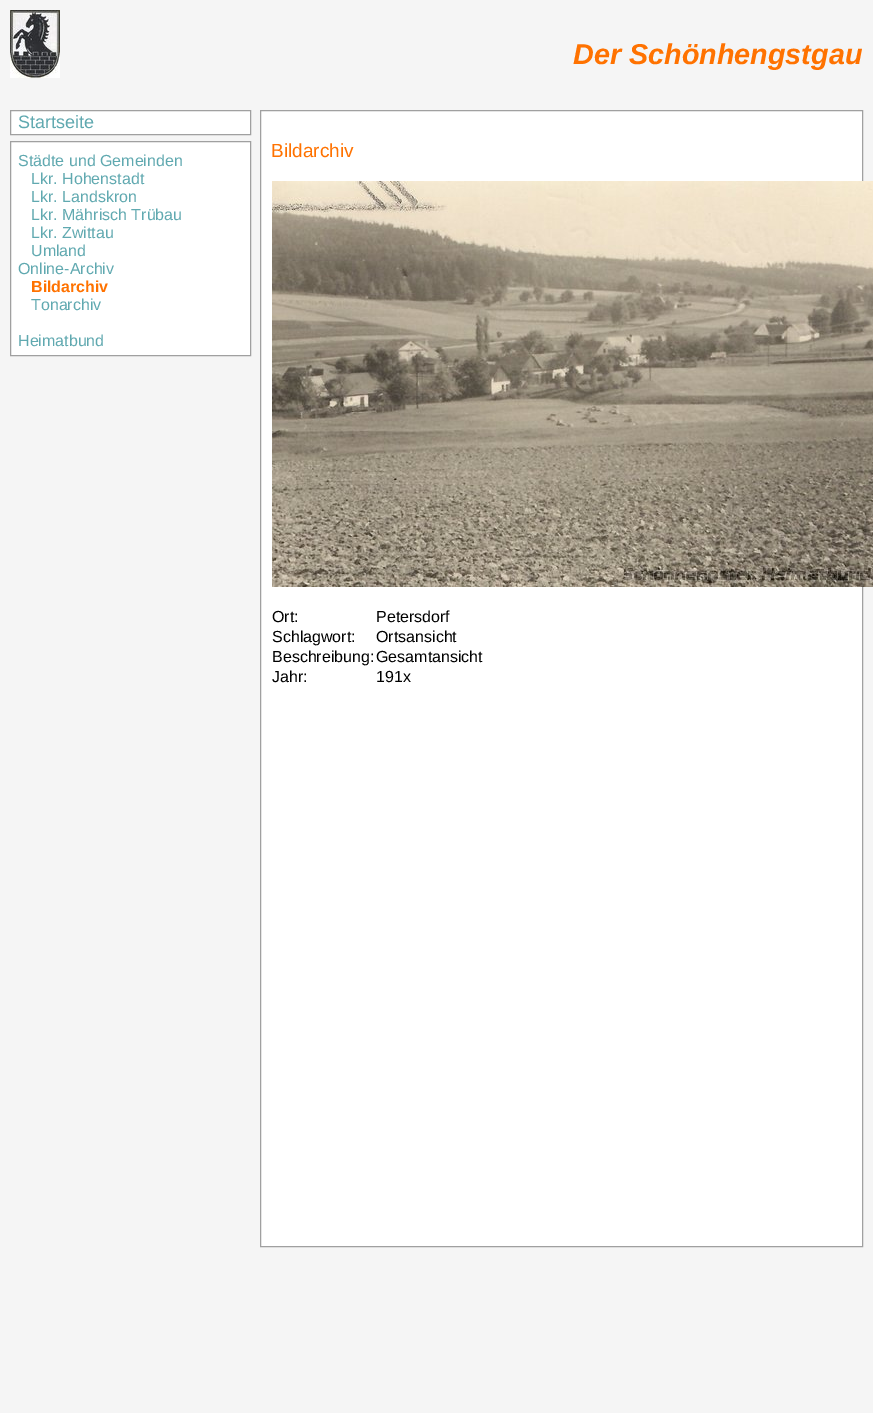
%!PS
<< /PageSize [873 1413] >> setpagedevice
/picture { 5 dict begin { /h /w /y /x /name } { exch def } forall
  gsave x y translate w h scale
  w h 8 [w 0 0 h 0 0] name (r) file false 3 colorimage grestore end } def
0 1413 translate 1 -1 scale
4 setmiterlimit
0.961 setgray
0 0 873 1413 rectfill
(img1.rgb) 10 10 50 68 picture
/LiberationSans-BoldItalic [28.75 0 0 -28.75 0 0] selectfont
1 0.447 0 setrgbcolor
573 64 moveto (Der Schönhengstgau) show
1 setgray
newpath 10.5 110.5 moveto 250.5 110.5 lineto 250.5 134.5 lineto 10.5 134.5 lineto closepath gsave fill grestore
0.627 setgray
stroke
/LiberationSans-Regular [18 0 0 -18 0 0] selectfont
0.376 0.663 0.69 setrgbcolor
18 128 moveto (Startseite) show
1 setgray
newpath 10.5 141.5 moveto 250.5 141.5 lineto 250.5 355.5 lineto 10.5 355.5 lineto closepath gsave fill grestore
0.627 setgray
stroke
/LiberationSans-Regular [16 0 0 -16 0 0] selectfont
0.376 0.663 0.69 setrgbcolor
18 166 moveto (Städte und Gemeinden) show
31 184 moveto (Lkr. Hohenstadt) show
31 202 moveto (Lkr. Landskron) show
31 220 moveto (Lkr. Mährisch Trübau) show
31 238 moveto (Lkr. Zwittau) show
31 256 moveto (Umland) show
18 274 moveto (Online-Archiv) show
/LiberationSans-Bold [16 0 0 -16 0 0] selectfont
1 0.447 0 setrgbcolor
31 292 moveto (Bildarchiv) show
/LiberationSans-Regular [16 0 0 -16 0 0] selectfont
0.376 0.663 0.69 setrgbcolor
31 310 moveto (Tonarchiv) show
18 346 moveto (Heimatbund) show
1 setgray
newpath 260.5 110.5 moveto 862.5 110.5 lineto 862.5 1246.5 lineto 260.5 1246.5 lineto closepath gsave fill grestore
0.627 setgray
stroke
/LiberationSans-Regular [19 0 0 -19 0 0] selectfont
1 0.447 0 setrgbcolor
271 157 moveto (Bildarchiv) show
(img2.rgb) 272 181 601 406 picture
/LiberationSans-Regular [16 0 0 -16 0 0] selectfont
0 setgray
272 622 moveto (Ort:) show
376 622 moveto (Petersdorf) show
272 642 moveto (Schlagwort:) show
376 642 moveto (Ortsansicht) show
272 662 moveto (Beschreibung:) show
376 662 moveto (Gesamtansicht) show
272 682 moveto (Jahr:) show
376 682 moveto (191x) show
showpage
